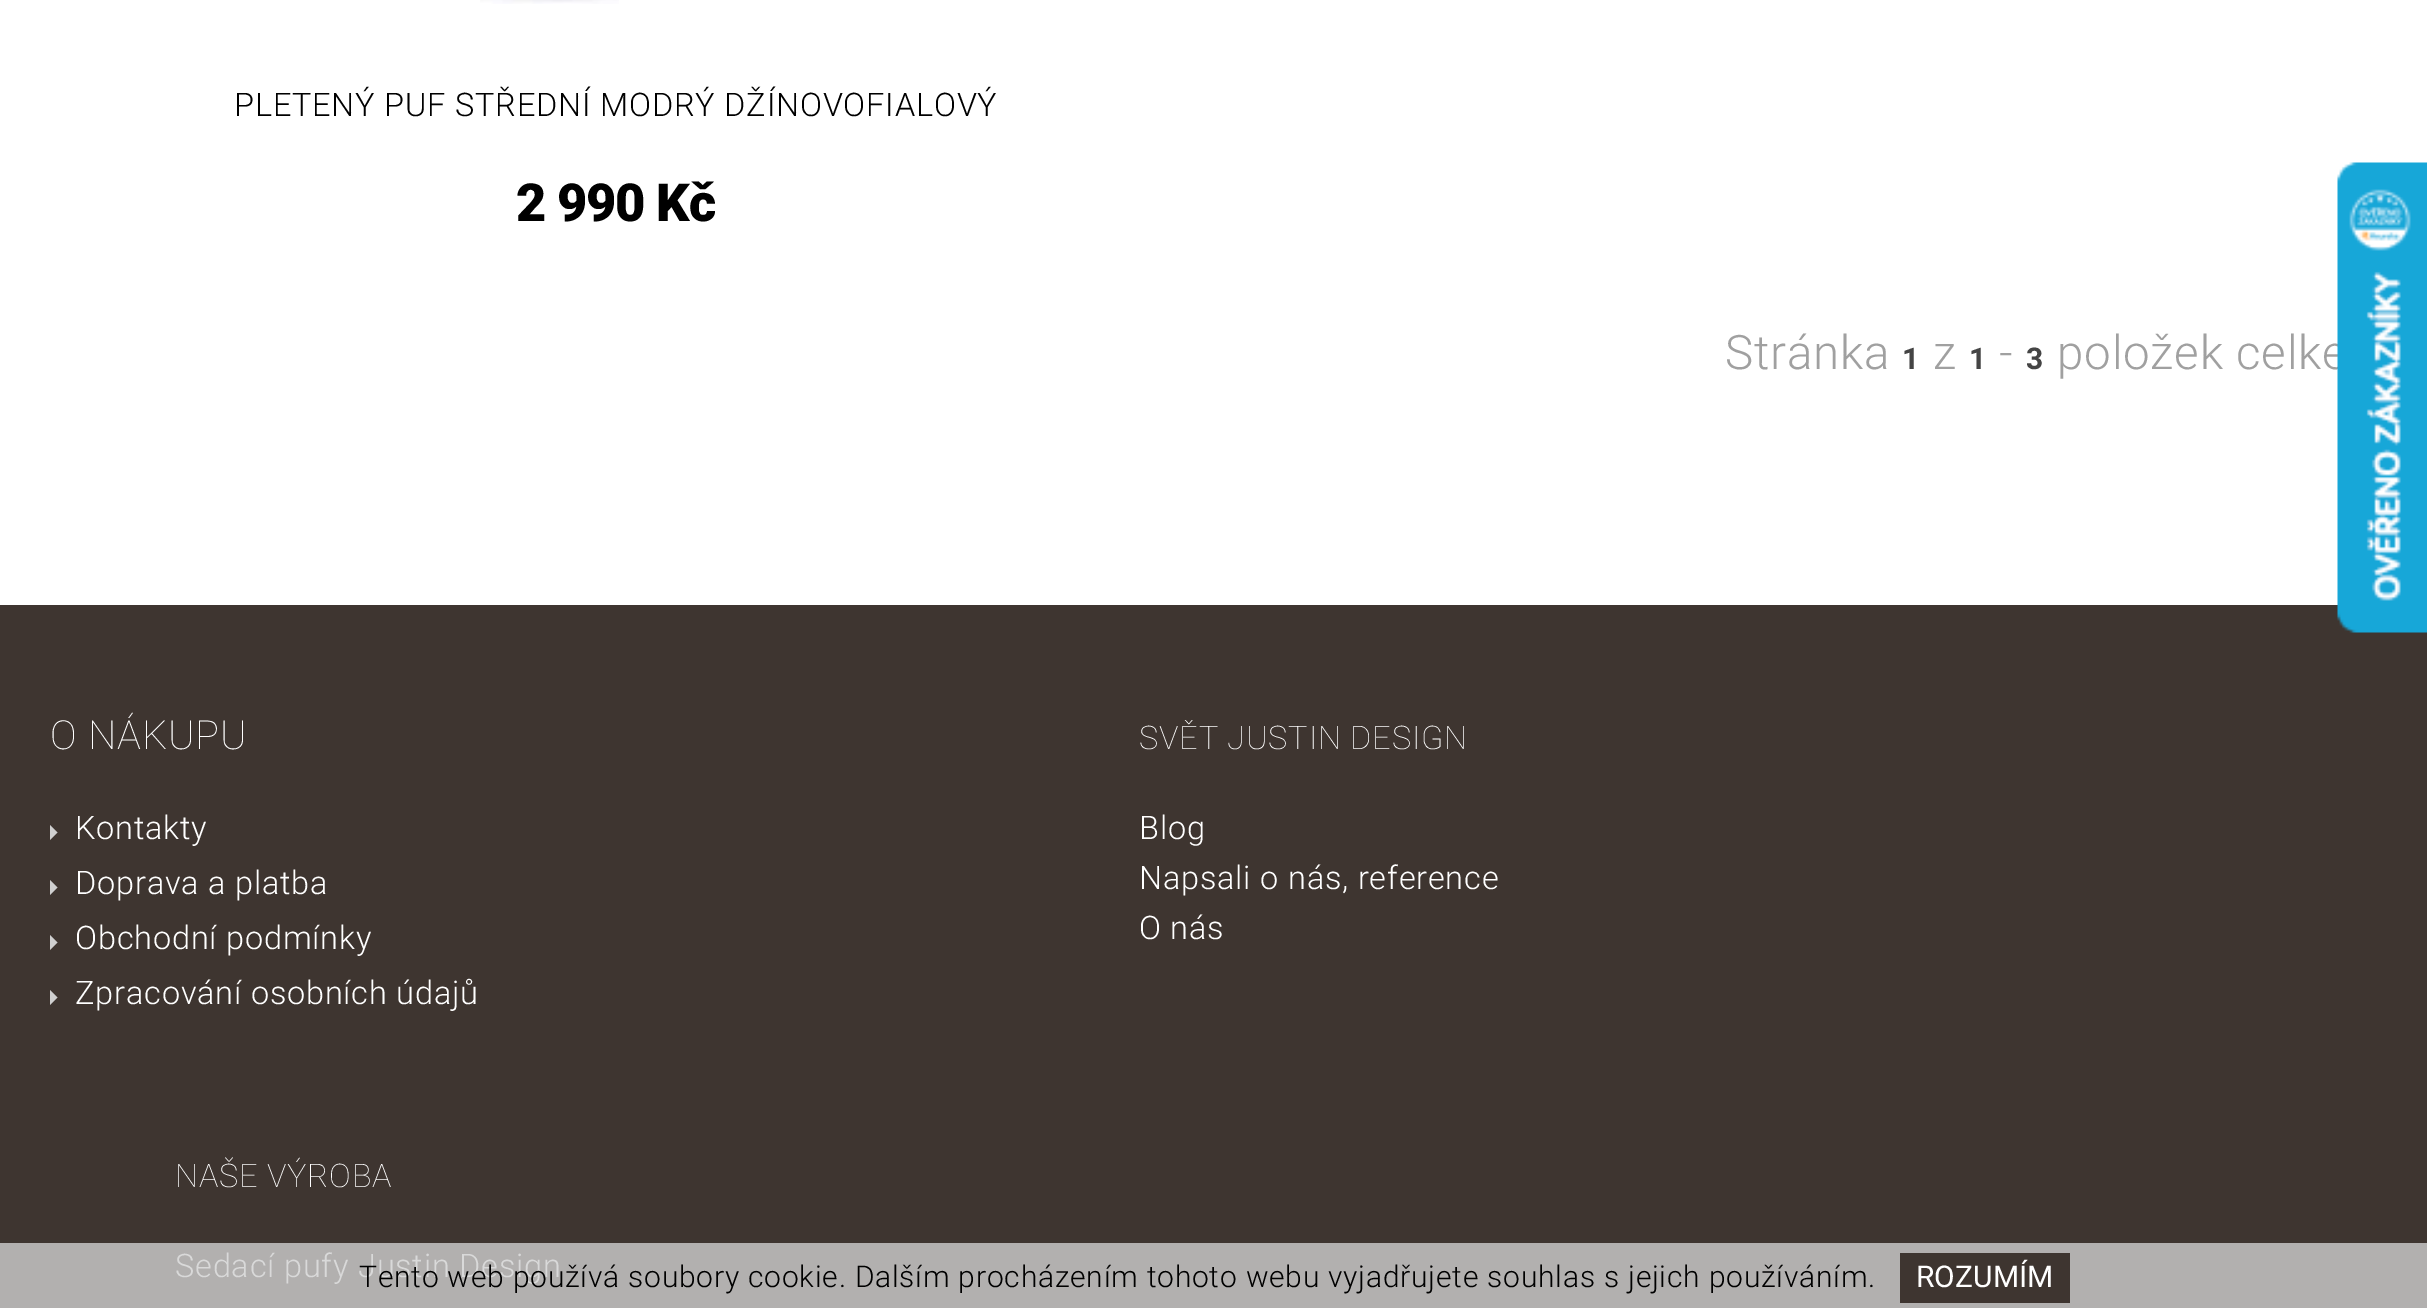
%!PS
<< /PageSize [2427 1308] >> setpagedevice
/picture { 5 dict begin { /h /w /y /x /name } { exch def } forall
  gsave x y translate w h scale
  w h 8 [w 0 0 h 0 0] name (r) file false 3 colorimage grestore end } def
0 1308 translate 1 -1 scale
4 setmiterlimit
1 setgray
0 0 2427 1308 rectfill
(img1.rgb) 480 0 139 4 picture
/Roboto-Light [32.5 0 0 -32.5 0 0] selectfont
0 setgray
234 116 moveto 0.8 0 (PLETENÝ PUF STŘEDNÍ MODRÝ DŽÍNOVOFIALOVÝ) ashow
/Roboto-Black [52.5 0 0 -52.5 0 0] selectfont
516 221 moveto -1.25 0 (2 990 Kč) ashow
/Roboto-Light [47.5 0 0 -47.5 0 0] selectfont
0.627 setgray
1725 369 moveto 0.8 0 (Stránka) ashow
/Roboto-Bold [30 0 0 -30 0 0] selectfont
0.267 setgray
1902 369 moveto 0.8 0 (1) ashow
/Roboto-Light [47.5 0 0 -47.5 0 0] selectfont
0.627 setgray
1933 369 moveto 0.8 0 (z) ashow
/Roboto-Bold [30 0 0 -30 0 0] selectfont
0.267 setgray
1969 369 moveto 0.8 0 (1) ashow
/Roboto-Light [47.5 0 0 -47.5 0 0] selectfont
0.627 setgray
1999 369 moveto 0.8 0 (-) ashow
/Roboto-Bold [30 0 0 -30 0 0] selectfont
0.267 setgray
2026 369 moveto 0.8 0 (3) ashow
/Roboto-Light [47.5 0 0 -47.5 0 0] selectfont
0.627 setgray
2057 369 moveto 0.8 0 (položek celke) ashow
0.243 0.208 0.188 setrgbcolor
0 605 2427 638 rectfill
0.698 0.69 0.686 setrgbcolor
0 1243 2427 65 rectfill
/Roboto-Thin [40 0 0 -40 0 0] selectfont
1 setgray
50 749 moveto 0.8 0 (O NÁKUPU) ashow
0.812 setgray
newpath 50 840 moveto 50 825 lineto 57.5 832.5 lineto closepath fill
/Roboto-Light [32.5 0 0 -32.5 0 0] selectfont
1 setgray
75 839 moveto 0.8 0 (Kontakty) ashow
0.812 setgray
newpath 50 895 moveto 50 880 lineto 57.5 887.5 lineto closepath fill
1 setgray
75 894 moveto 0.8 0 (Doprava a platba) ashow
0.812 setgray
newpath 50 950 moveto 50 935 lineto 57.5 942.5 lineto closepath fill
1 setgray
75 949 moveto 0.8 0 (Obchodní podmínky) ashow
0.812 setgray
newpath 50 1005 moveto 50 990 lineto 57.5 997.5 lineto closepath fill
1 setgray
75 1004 moveto 0.8 0 (Zpracování osobních údajů) ashow
/Roboto-Thin [32.5 0 0 -32.5 0 0] selectfont
1139 749 moveto 0.8 0 (SVĚT JUSTIN DESIGN) ashow
/Roboto-Light [32.5 0 0 -32.5 0 0] selectfont
1139 839 moveto 0.8 0 (Blog) ashow
1139 889 moveto 0.8 0 (Napsali o nás, reference) ashow
1139 939 moveto 0.8 0 (O nás) ashow
/Roboto-Thin [32.5 0 0 -32.5 0 0] selectfont
175 1187 moveto 0.8 0 (NAŠE VÝROBA) ashow
/Roboto-Light [32.5 0 0 -32.5 0 0] selectfont
0.851 setgray
175 1277 moveto 0.8 0 (Sedací pufy Justin Design) ashow
(img2.rgb) 2337 162 90 471 picture
/Roboto-Light [30 0 0 -30 0 0] selectfont
0 setgray
359 1287 moveto 0.8 0 (Tento web používá soubory cookie. Dalším procházením tohoto webu vyjadřujete souhlas s jejich používáním.) ashow
0.243 0.208 0.188 setrgbcolor
1900 1253 170 50 rectfill
/Roboto-Regular [30 0 0 -30 0 0] selectfont
1 setgray
1916 1287 moveto (ROZUMÍM) show
showpage
